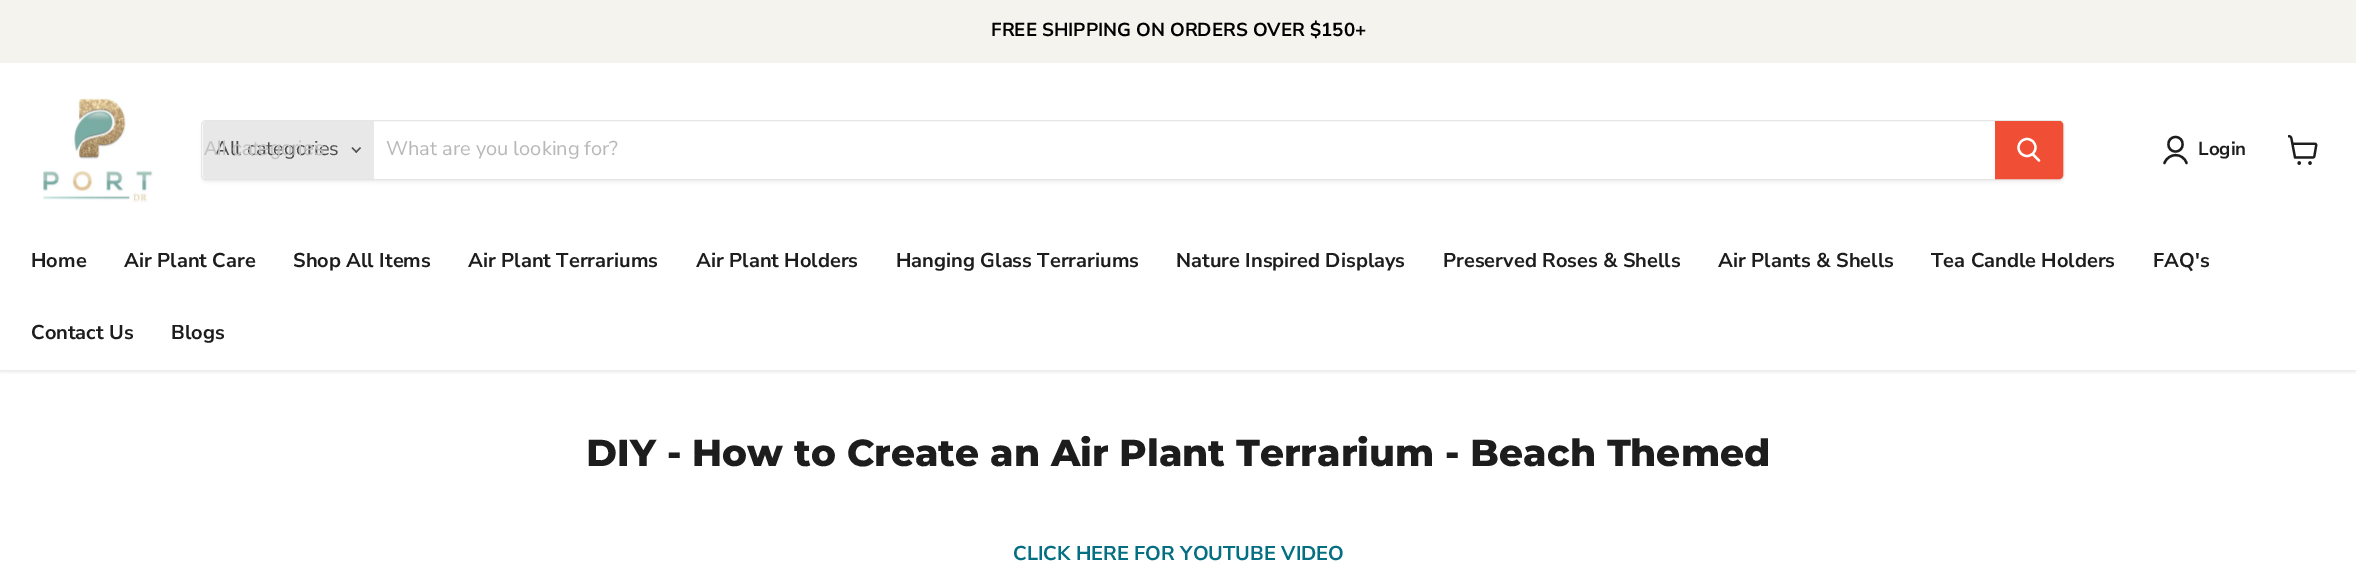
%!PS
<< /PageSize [2356 563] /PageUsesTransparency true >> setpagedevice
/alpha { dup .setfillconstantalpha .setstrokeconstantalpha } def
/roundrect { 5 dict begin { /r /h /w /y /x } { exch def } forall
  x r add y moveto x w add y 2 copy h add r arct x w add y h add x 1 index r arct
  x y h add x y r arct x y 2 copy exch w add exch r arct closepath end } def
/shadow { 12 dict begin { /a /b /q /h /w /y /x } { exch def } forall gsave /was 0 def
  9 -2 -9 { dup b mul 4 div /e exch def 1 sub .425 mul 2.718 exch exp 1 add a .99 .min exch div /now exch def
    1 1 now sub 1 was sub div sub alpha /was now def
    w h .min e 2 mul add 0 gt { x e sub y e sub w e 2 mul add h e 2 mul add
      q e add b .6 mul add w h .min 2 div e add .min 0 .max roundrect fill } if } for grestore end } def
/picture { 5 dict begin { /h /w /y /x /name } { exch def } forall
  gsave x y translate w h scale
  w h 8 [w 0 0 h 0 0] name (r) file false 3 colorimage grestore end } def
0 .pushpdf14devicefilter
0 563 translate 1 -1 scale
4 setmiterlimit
1 setgray
0 0 2356 563 rectfill
gsave
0 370 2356 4 rectclip
0.502 setgray
0 64 2356 307 0 2.5 0.25 shadow
grestore
0.961 0.953 0.929 setrgbcolor
0 0 2356 63 rectfill
/NunitoSans-Bold [18.75 0 0 -18.75 0 0] selectfont
0 setgray
991 36 moveto (FREE SHIPPING ON ORDERS OVER $150+) show
(img1.rgb) 43 98 110 105 picture
gsave
newpath 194 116 moveto 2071 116 lineto 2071 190 lineto 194 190 lineto closepath 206 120 moveto 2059 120 lineto 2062 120 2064 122 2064 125 curveto 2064 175 lineto 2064 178 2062 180 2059 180 curveto 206 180 lineto 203 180 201 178 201 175 curveto 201 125 lineto 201 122 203 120 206 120 curveto closepath eoclip newpath
0.502 setgray
201 123 1863 60 5 2 0.11 shadow
grestore
0.2 alpha
0.502 setgray
201.5 120.5 1862 59 4.5 roundrect stroke
1 alpha
0.91 setgray
newpath 207 121 moveto 374 121 lineto 374 179 lineto 207 179 lineto 205 179 203 177 203 175 curveto 203 125 lineto 203 123 205 121 207 121 curveto closepath fill
/NunitoSans-Regular [20 0 0 -20 0 0] selectfont
0.302 setgray
215 155 moveto (All categories) show
/LiberationSans-Regular [20 0 0 -20 0 0] selectfont
0.761 setgray
204 155 moveto (All categories) show
(img2.rgb) 351 147 10 6 picture
/NunitoSans-Regular [20 0 0 -20 0 0] selectfont
0.722 setgray
386 155 moveto (What are you looking for?) show
0.941 0.31 0.212 setrgbcolor
newpath 1995.5 121.5 moveto 2059 121.5 lineto 2061 121.5 2062.5 123 2062.5 125 curveto 2062.5 175 lineto 2062.5 177 2061 178.5 2059 178.5 curveto 1995.5 178.5 lineto closepath gsave fill grestore
stroke
1 setgray
2.2 setlinewidth
1 setlinecap
newpath 2039 160.5 moveto 2033 154.5 lineto stroke
0 setlinecap
newpath 2027 147.5 8.5 0 360 arc closepath stroke
0.114 setgray
2.3 setlinewidth
1 setlinecap
1 setlinejoin
newpath 2175.5 151.5 moveto 2185 151.5 2185 137 2175.5 137 curveto 2166 137 2166 151.5 2175.5 151.5 curveto closepath 2186.5 163 moveto 2183 152.5 2168.5 152.5 2164.5 163 curveto stroke
/NunitoSans-Bold [18.75 0 0 -18.75 0 0] selectfont
2198 155 moveto (Login) show
(img3.rgb) 2288 135 30 30 picture
/NunitoSans-Bold [20 0 0 -20 0 0] selectfont
31 267 moveto (Home) show
124 267 moveto (Air Plant Care) show
293 267 moveto (Shop All Items) show
468 267 moveto (Air Plant Terrariums) show
696 267 moveto (Air Plant Holders) show
896 267 moveto (Hanging Glass Terrariums) show
1176 267 moveto (Nature Inspired Displays) show
1443 267 moveto (Preserved Roses & Shells) show
1718 267 moveto (Air Plants & Shells) show
1931 267 moveto (Tea Candle Holders) show
2153 267 moveto (FAQ's) show
31 339 moveto (Contact Us) show
171 339 moveto (Blogs) show
/Montserrat-ExtraBold [37.5 0 0 -37.5 0 0] selectfont
586 466 moveto (DIY - How to Create an Air Plant Terrarium - Beach Themed) show
/NunitoSans-Bold [20 0 0 -20 0 0] selectfont
0.016 0.431 0.51 setrgbcolor
1013 560 moveto (CLICK HERE FOR YOUTUBE VIDEO) show
.poppdf14devicefilter showpage
